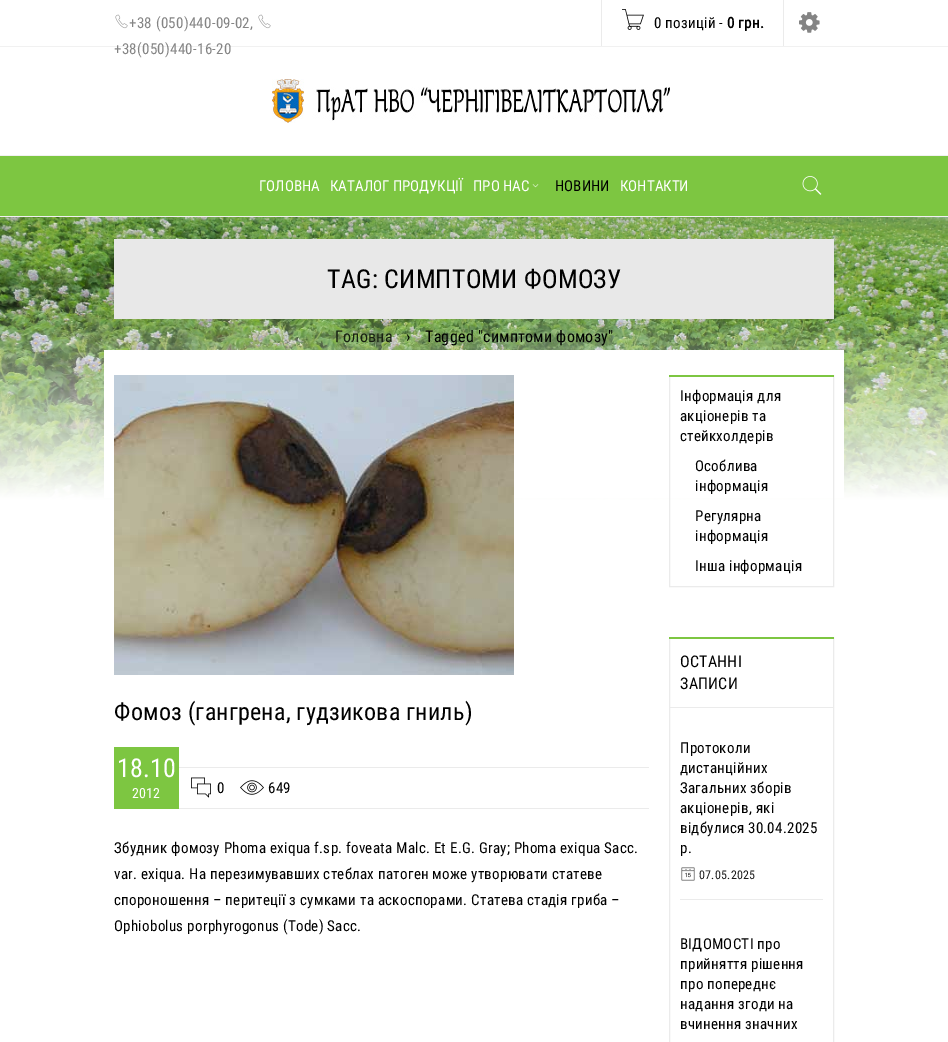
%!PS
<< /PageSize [948 1042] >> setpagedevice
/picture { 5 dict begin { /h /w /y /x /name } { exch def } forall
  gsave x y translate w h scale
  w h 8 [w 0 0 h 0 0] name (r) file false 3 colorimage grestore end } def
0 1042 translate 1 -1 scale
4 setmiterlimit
1 setgray
0 0 948 1042 rectfill
0.945 setgray
0 46 948 1 rectfill
(img1.rgb) 115 14 13 15 picture
/RobotoCondensed-Regular [15 0 0 -15 0 0] selectfont
0.518 setgray
129 28 moveto 0.25 0 (+38 \(050\)440-09-02,) ashow
(img1.rgb) 258 14 13 15 picture
114 54 moveto 0.25 0 (+38\(050\)440-16-20) ashow
0.922 setgray
783 0 1 46 rectfill
601 0 1 46 rectfill
(img2.rgb) 622 9 22 21 picture
0 setgray
654 28 moveto 0.25 0 (0 позицій -) ashow
/RobotoCondensed-Bold [15 0 0 -15 0 0] selectfont
727 28 moveto 0.25 0 (0 грн.) ashow
(img3.rgb) 799 12 21 21 picture
(img4.rgb) 272 79 398 44 picture
0.49 0.776 0.255 setrgbcolor
0 156 948 60 rectfill
0.945 setgray
0 155 948 1 rectfill
0 216 948 1 rectfill
/RobotoCondensed-Regular [15 0 0 -15 0 0] selectfont
1 setgray
259 191 moveto (ГОЛОВНА) show
330 191 moveto (КАТАЛОГ ПРОДУКЦІЇ) show
473 191 moveto (ПРО НАС) show
(img5.rgb) 532 184 7 4 picture
0 setgray
555 191 moveto (НОВИНИ) show
1 setgray
620 191 moveto (КОНТАКТИ) show
(img6.rgb) 802 176 20 19 picture
(img7.rgb) 0 217 948 283 picture
0.91 setgray
114 239 720 80 rectfill
/RobotoCondensed-Regular [26 0 0 -26 0 0] selectfont
0 setgray
327 288 moveto 0.25 0 (TAG: СИМПТОМИ ФОМОЗУ) ashow
/RobotoCondensed-Regular [16 0 0 -16 0 0] selectfont
0.094 0.125 0.071 setrgbcolor
335 342 moveto 0.25 0 (Головна) ashow
0 setgray
406 342 moveto 0.25 0 (›) ashow
425 342 moveto 0.25 0 (Tagged "симптоми фомозу") ashow
1 setgray
104 350 740 148 rectfill
(img8.rgb) 114 375 400 300 picture
/RobotoCondensed-Regular [24 0 0 -24 0 0] selectfont
0 setgray
114 720 moveto 0.25 0 (Фомоз \(гангрена, гудзикова гниль\)) ashow
0.922 setgray
179 767 470 1 rectfill
179 808 470 1 rectfill
0.49 0.776 0.255 setrgbcolor
114 747 65 62 rectfill
/RobotoCondensed-Regular [26 0 0 -26 0 0] selectfont
1 setgray
117 777 moveto 0.25 0 (18.10) ashow
/RobotoCondensed-Regular [14 0 0 -14 0 0] selectfont
132 798 moveto 0.25 0 (2012) ashow
(img9.rgb) 191 777 20 21 picture
/RobotoCondensed-Regular [15 0 0 -15 0 0] selectfont
0 setgray
217 793 moveto 0.25 0 (0) ashow
(img10.rgb) 240 780 24 15 picture
268 793 moveto 0.25 0 (649) ashow
114 853 moveto 0.25 0 (Збудник фомозу Phoma exiqua f.sp. foveata Malc. Et E.G. Gray; Phoma exiqua Sacc.) ashow
114 879 moveto 0.25 0 (var. exiqua. На перезимувавших стеблах патоген може утворювати статеве) ashow
114 905 moveto 0.25 0 (спороношення – перитеції з сумками та аскоспорами. Статева стадія гриба –) ashow
114 931 moveto 0.25 0 (Ophiobolus porphyrogonus \(Tode\) Sacc.) ashow
0.922 setgray
669.5 375.5 164 211 rectstroke
0.49 0.776 0.255 setrgbcolor
669 375 165 2 rectfill
0 setgray
680 401 moveto 0.25 0 (Інформація для) ashow
680 421 moveto 0.25 0 (акціонерів та) ashow
680 441 moveto 0.25 0 (стейкхолдерів) ashow
695 471 moveto 0.25 0 (Особлива) ashow
695 491 moveto 0.25 0 (інформація) ashow
695 521 moveto 0.25 0 (Регулярна) ashow
695 541 moveto 0.25 0 (інформація) ashow
695 571 moveto 0.25 0 (Інша інформація) ashow
0.922 setgray
669.5 637.5 164 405 rectstroke
0.49 0.776 0.255 setrgbcolor
669 637 165 2 rectfill
/RobotoCondensed-Regular [16 0 0 -16 0 0] selectfont
0 setgray
680 667 moveto 0.25 0 (ОСТАННІ) ashow
680 689 moveto 0.25 0 (ЗАПИСИ) ashow
0.922 setgray
670 707 163 1 rectfill
/RobotoCondensed-Regular [15 0 0 -15 0 0] selectfont
0 setgray
680 753 moveto 0.25 0 (Протоколи) ashow
680 773 moveto 0.25 0 (дистанційних) ashow
680 793 moveto 0.25 0 (Загальних зборів) ashow
680 813 moveto 0.25 0 (акціонерів, які) ashow
680 833 moveto 0.25 0 (відбулися 30.04.2025) ashow
680 853 moveto 0.25 0 (р.) ashow
(img11.rgb) 681 867 14 14 picture
/RobotoCondensed-Regular [12 0 0 -12 0 0] selectfont
0.102 setgray
699 879 moveto 0.25 0 (07.05.2025) ashow
0.922 setgray
680 899 143 1 rectfill
/RobotoCondensed-Regular [15 0 0 -15 0 0] selectfont
0 setgray
680 949 moveto 0.25 0 (ВІДОМОСТІ про) ashow
680 969 moveto 0.25 0 (прийняття рішення) ashow
680 989 moveto 0.25 0 (про попереднє) ashow
680 1009 moveto 0.25 0 (надання згоди на) ashow
680 1029 moveto 0.25 0 (вчинення значних) ashow
showpage
